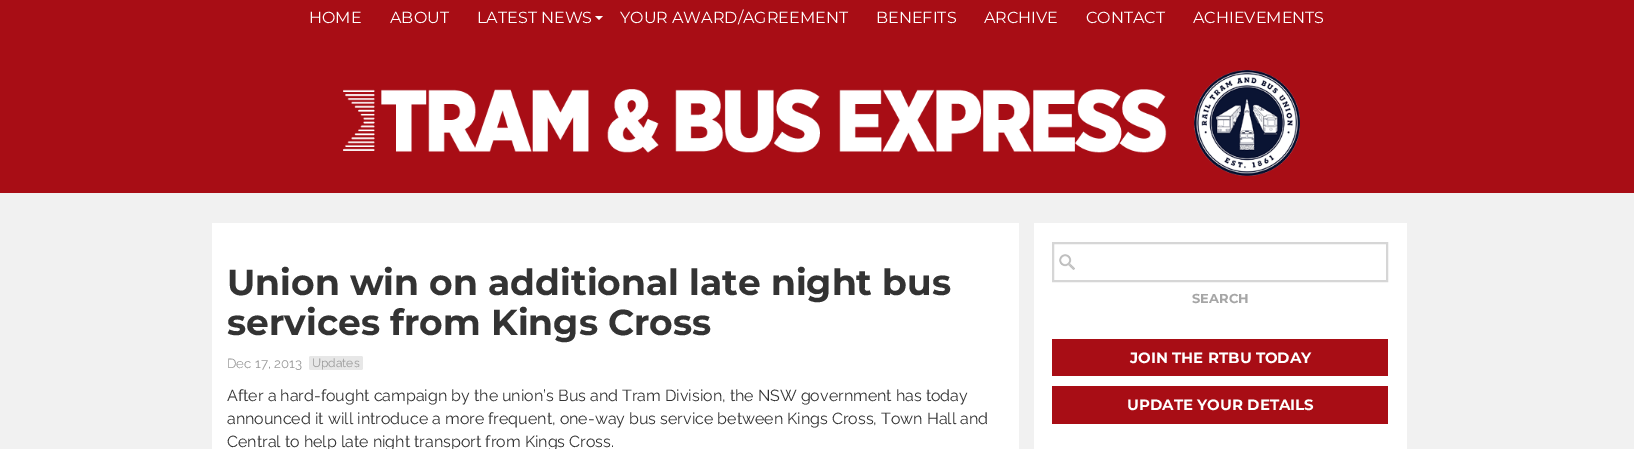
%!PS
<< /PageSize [1634 449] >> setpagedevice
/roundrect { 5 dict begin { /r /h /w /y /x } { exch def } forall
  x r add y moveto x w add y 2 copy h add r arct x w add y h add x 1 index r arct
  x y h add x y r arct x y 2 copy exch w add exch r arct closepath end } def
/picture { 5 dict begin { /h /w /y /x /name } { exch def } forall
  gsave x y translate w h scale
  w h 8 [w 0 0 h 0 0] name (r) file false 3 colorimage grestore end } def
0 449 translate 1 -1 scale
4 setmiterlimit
0.945 setgray
0 0 1634 449 rectfill
0.659 0.051 0.082 setrgbcolor
0 0 1634 193 rectfill
/Montserrat-Regular [16 0 0 -16 0 0] selectfont
1 setgray
309 23 moveto (HOME) show
390 23 moveto (ABOUT) show
477 23 moveto (LATEST NEWS) show
newpath 595 16 moveto 603 16 lineto 599 20 lineto closepath fill
620 23 moveto (YOUR AWARD/AGREEMENT) show
876 23 moveto (BENEFITS) show
984 23 moveto (ARCHIVE) show
1086 23 moveto (CONTACT) show
1193 23 moveto (ACHIEVEMENTS) show
(img1.rgb) 343 70 957 106 picture
212 223 807 226 rectfill
/Montserrat-Bold [36 0 0 -36 0 0] selectfont
0.2 setgray
227 295 moveto (Union win on additional late night bus) show
227 335 moveto (services from Kings Cross) show
/Raleway-Thin [13.25 0 0 -13.25 0 0] selectfont
0.6 setgray
227 368 moveto (Dec 17, 2013) show
0.906 setgray
309 356 54 14 2 roundrect fill
/Raleway-Thin [12 0 0 -12 0 0] selectfont
0.6 setgray
312 367 moveto (Updates) show
/Raleway-Thin [16 0 0 -16 0 0] selectfont
0.2 setgray
227 401 moveto (After a hard-fought campaign by the union’s Bus and Tram Division, the NSW government has today) show
227 424 moveto (announced it will introduce a more frequent, one-way bus service between Kings Cross, Town Hall and) show
227 447 moveto (Central to help late night transport from Kings Cross.) show
1 setgray
1034 223 373 226 rectfill
(img2.rgb) 1059 254 16 16 picture
0.839 setgray
2 setlinewidth
1053 243 334 38 rectstroke
/Montserrat-Bold [13 0 0 -13 0 0] selectfont
0.651 setgray
1192 303 moveto (SEARCH) show
0.659 0.051 0.082 setrgbcolor
1052 339 336 37 rectfill
/Montserrat-Bold [15 0 0 -15 0 0] selectfont
1 setgray
1130 363 moveto (JOIN THE RTBU TODAY) show
0.659 0.051 0.082 setrgbcolor
1052 386 336 38 rectfill
1 setgray
1127 410 moveto (UPDATE YOUR DETAILS) show
showpage
